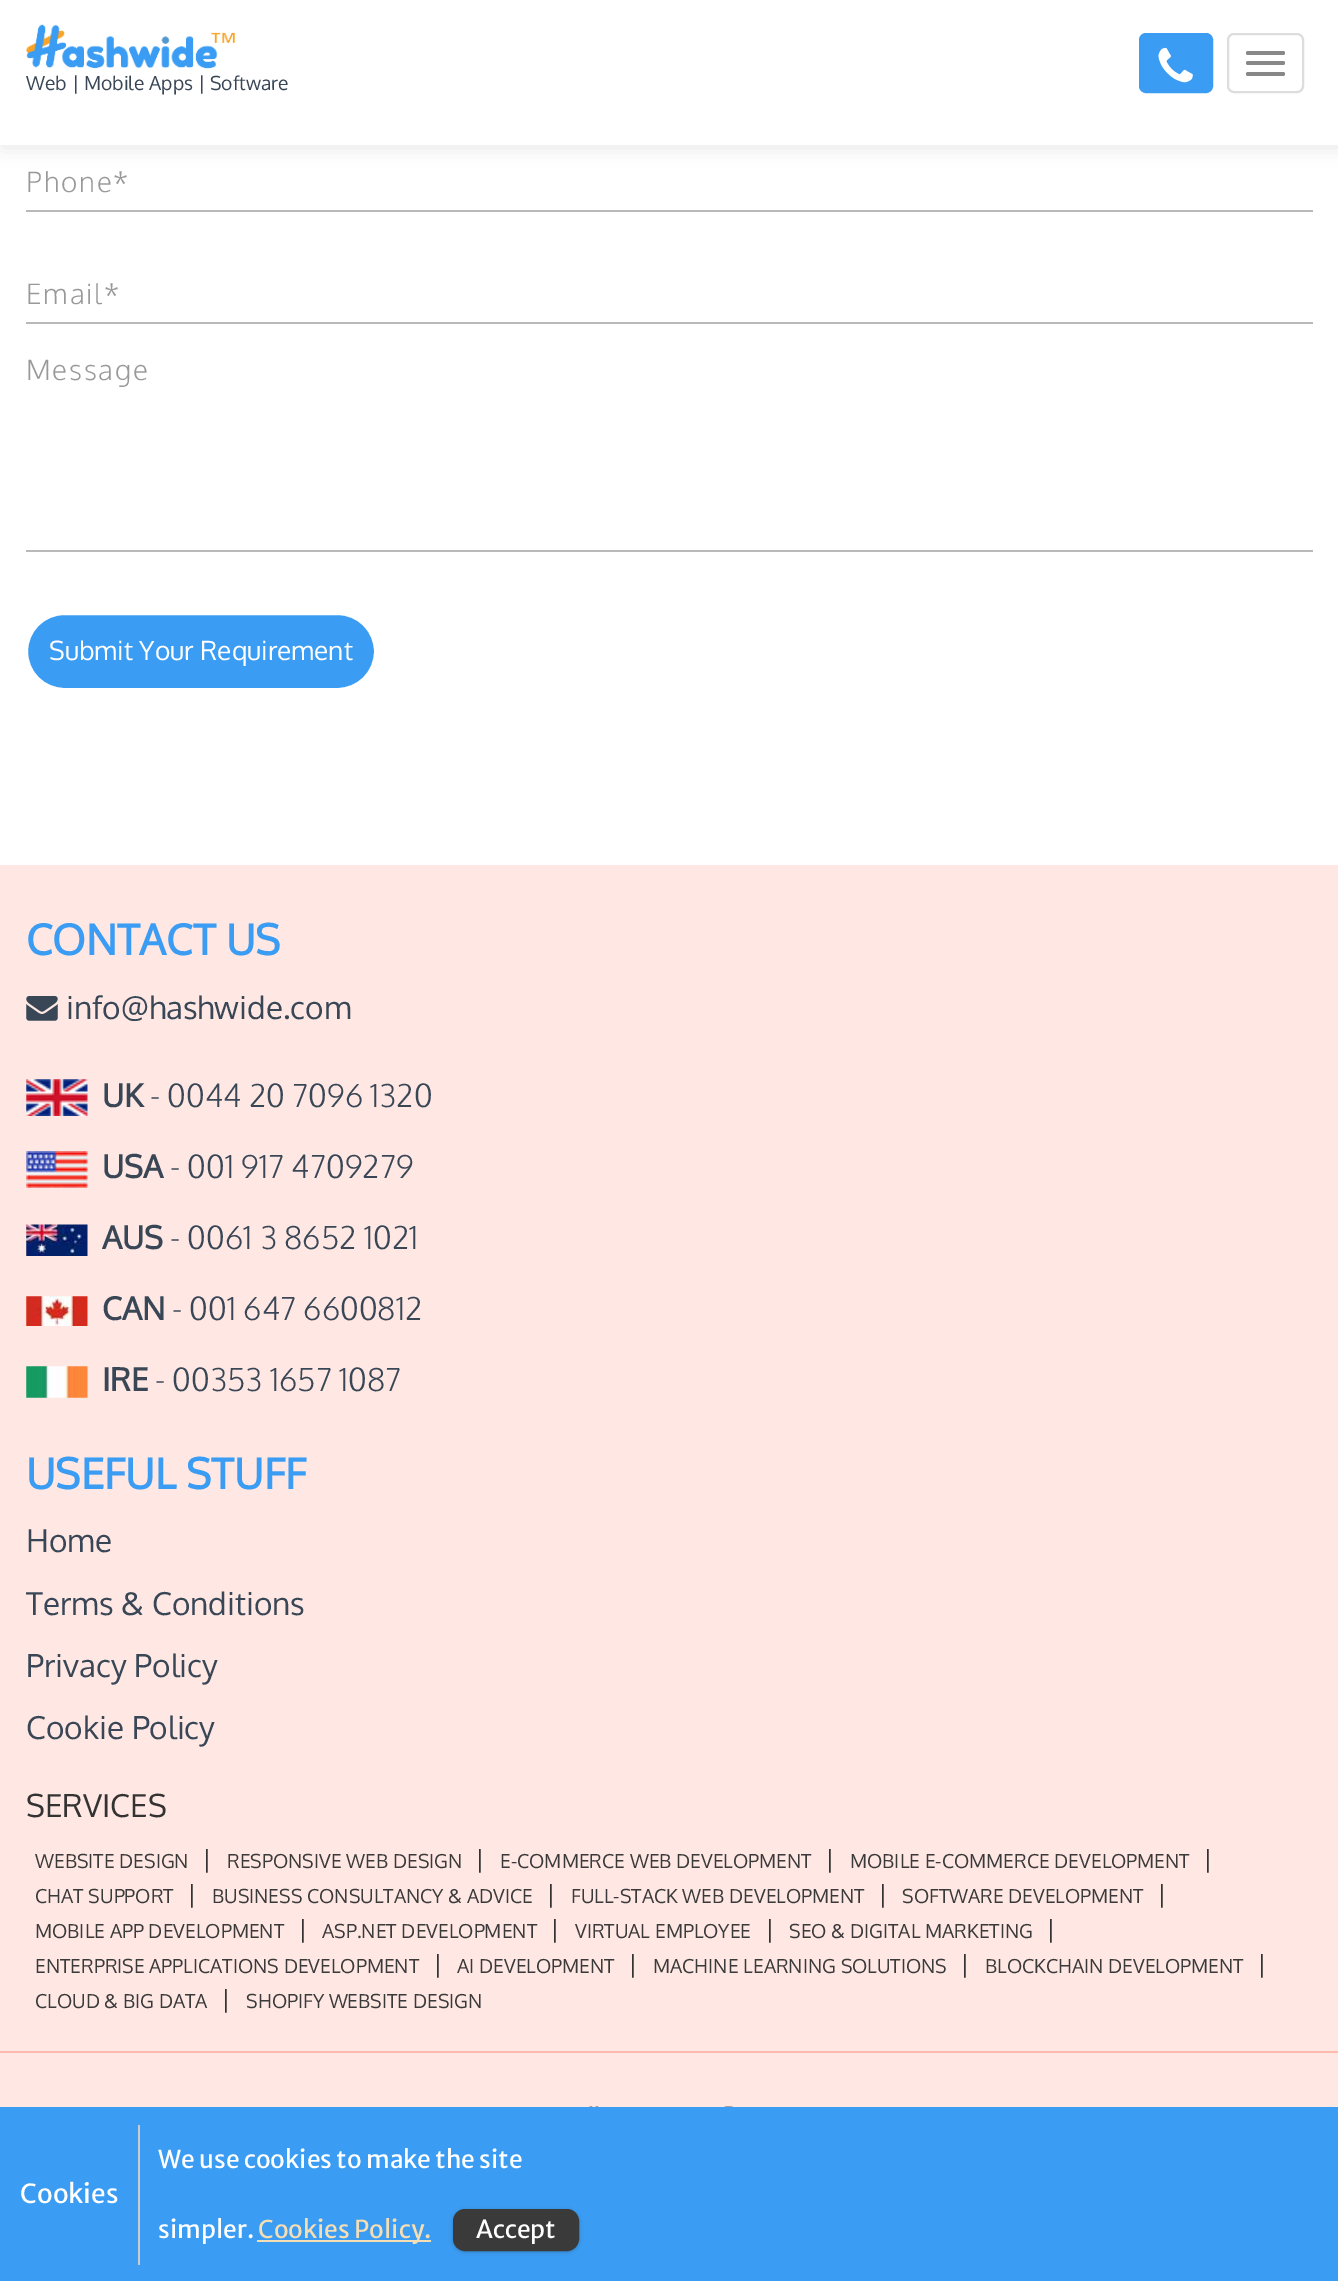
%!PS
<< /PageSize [1338 2281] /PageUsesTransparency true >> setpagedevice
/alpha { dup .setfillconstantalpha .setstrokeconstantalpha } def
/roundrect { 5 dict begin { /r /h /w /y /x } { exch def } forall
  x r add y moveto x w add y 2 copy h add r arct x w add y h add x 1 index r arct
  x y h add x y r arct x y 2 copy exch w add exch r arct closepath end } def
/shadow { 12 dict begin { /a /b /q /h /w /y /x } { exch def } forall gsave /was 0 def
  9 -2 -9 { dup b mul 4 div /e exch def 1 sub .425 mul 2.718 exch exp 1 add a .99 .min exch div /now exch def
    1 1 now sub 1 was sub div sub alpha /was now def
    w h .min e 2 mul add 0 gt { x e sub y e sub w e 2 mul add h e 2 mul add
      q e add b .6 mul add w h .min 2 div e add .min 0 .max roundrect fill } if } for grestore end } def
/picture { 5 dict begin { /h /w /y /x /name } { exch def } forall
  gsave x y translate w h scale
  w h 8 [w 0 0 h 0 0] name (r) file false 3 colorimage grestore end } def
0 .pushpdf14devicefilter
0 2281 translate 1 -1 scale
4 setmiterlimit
1 setgray
0 0 1338 2281 rectfill
0 setgray
2 0 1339 147 0 9.5 0.1 shadow
1 setgray
0 0 1338 145 rectfill
(img1.rgb) 26 24 209 45 picture
/Oxygen-Regular [19.25 0 0 -19.25 0 0] selectfont
0.22 0.275 0.337 setrgbcolor
26 90 moveto (Web | Mobile Apps | Software) show
0.227 0.612 0.949 setrgbcolor
1140 34 72 58 6 roundrect gsave fill grestore
2 setlinewidth
stroke
(img2.rgb) 1158 47 35 36 picture
0.867 setgray
1228 34 75 58 6 roundrect stroke
0.533 setgray
1246 51 39 4 2 roundrect fill
1246 61 39 4 2 roundrect fill
1246 72 39 4 2 roundrect fill
0.725 setgray
26 210 1287 2 rectfill
/Oxygen-Light [28 0 0 -28 0 0] selectfont
0.6 setgray
26 192 moveto 1.75 0 (Phone*) ashow
0.725 setgray
26 322 1287 2 rectfill
0.6 setgray
26 304 moveto 1.75 0 (Email*) ashow
0.725 setgray
26 550 1287 2 rectfill
0.6 setgray
26 380 moveto 1.75 0 (Message) ashow
0.227 0.612 0.949 setrgbcolor
27 614 348 75 37.5 roundrect gsave fill grestore
1 setgray
stroke
/Oxygen-Regular [26.25 0 0 -26.25 0 0] selectfont
49 660 moveto (Submit Your Requirement) show
1 0.906 0.89 setrgbcolor
0 865 1338 1242 rectfill
/Oxygen-Bold [42 0 0 -42 0 0] selectfont
0.227 0.612 0.949 setrgbcolor
26 955 moveto (CONTACT US) show
(img3.rgb) 26 996 32 25 picture
/Oxygen-Regular [31.5 0 0 -31.5 0 0] selectfont
0.22 0.275 0.337 setrgbcolor
66 1019 moveto (info@hashwide.com) show
(img4.rgb) 26 1079 62 37 picture
/Oxygen-Bold [31.5 0 0 -31.5 0 0] selectfont
102 1107 moveto (UK) show
/Oxygen-Light [31.5 0 0 -31.5 0 0] selectfont
150 1107 moveto (- 0044 20 7096 1320) show
(img5.rgb) 26 1151 62 37 picture
/Oxygen-Bold [31.5 0 0 -31.5 0 0] selectfont
102 1178 moveto (USA) show
/Oxygen-Light [31.5 0 0 -31.5 0 0] selectfont
170 1178 moveto (- 001 917 4709279) show
(img6.rgb) 26 1224 62 32 picture
/Oxygen-Bold [31.5 0 0 -31.5 0 0] selectfont
102 1249 moveto (AUS) show
/Oxygen-Light [31.5 0 0 -31.5 0 0] selectfont
170 1249 moveto (- 0061 3 8652 1021) show
(img7.rgb) 26 1296 62 30 picture
/Oxygen-Bold [31.5 0 0 -31.5 0 0] selectfont
102 1320 moveto (CAN) show
/Oxygen-Light [31.5 0 0 -31.5 0 0] selectfont
172 1320 moveto (- 001 647 6600812) show
(img8.rgb) 26 1366 62 32 picture
/Oxygen-Bold [31.5 0 0 -31.5 0 0] selectfont
102 1391 moveto (IRE) show
/Oxygen-Light [31.5 0 0 -31.5 0 0] selectfont
155 1391 moveto (- 00353 1657 1087) show
/Oxygen-Bold [42 0 0 -42 0 0] selectfont
0.227 0.612 0.949 setrgbcolor
26 1489 moveto (USEFUL STUFF) show
/Oxygen-Regular [31.5 0 0 -31.5 0 0] selectfont
0.22 0.275 0.337 setrgbcolor
26 1552 moveto (Home) show
26 1615 moveto (Terms & Conditions) show
26 1677 moveto (Privacy Policy) show
26 1739 moveto (Cookie Policy) show
0.2 setgray
26 1817 moveto (SERVICES) show
/Oxygen-Regular [19.25 0 0 -19.25 0 0] selectfont
0.227 setgray
35 1868 moveto (WEBSITE DESIGN) show
/Oxygen-Regular [24.5 0 0 -24.5 0 0] selectfont
0.2 setgray
202 1868 moveto (|) show
/Oxygen-Regular [19.25 0 0 -19.25 0 0] selectfont
0.227 setgray
227 1868 moveto (RESPONSIVE WEB DESIGN) show
/Oxygen-Regular [24.5 0 0 -24.5 0 0] selectfont
0.2 setgray
475 1868 moveto (|) show
/Oxygen-Regular [19.25 0 0 -19.25 0 0] selectfont
0.227 setgray
500 1868 moveto (E-COMMERCE WEB DEVELOPMENT) show
/Oxygen-Regular [24.5 0 0 -24.5 0 0] selectfont
0.2 setgray
825 1868 moveto (|) show
/Oxygen-Regular [19.25 0 0 -19.25 0 0] selectfont
0.227 setgray
850 1868 moveto (MOBILE E-COMMERCE DEVELOPMENT) show
/Oxygen-Regular [24.5 0 0 -24.5 0 0] selectfont
0.2 setgray
1203 1868 moveto (|) show
/Oxygen-Regular [19.25 0 0 -19.25 0 0] selectfont
0.227 setgray
35 1903 moveto (CHAT SUPPORT) show
/Oxygen-Regular [24.5 0 0 -24.5 0 0] selectfont
0.2 setgray
187 1903 moveto (|) show
/Oxygen-Regular [19.25 0 0 -19.25 0 0] selectfont
0.227 setgray
212 1903 moveto (BUSINESS CONSULTANCY & ADVICE) show
/Oxygen-Regular [24.5 0 0 -24.5 0 0] selectfont
0.2 setgray
546 1903 moveto (|) show
/Oxygen-Regular [19.25 0 0 -19.25 0 0] selectfont
0.227 setgray
571 1903 moveto (FULL-STACK WEB DEVELOPMENT) show
/Oxygen-Regular [24.5 0 0 -24.5 0 0] selectfont
0.2 setgray
878 1903 moveto (|) show
/Oxygen-Regular [19.25 0 0 -19.25 0 0] selectfont
0.227 setgray
902 1903 moveto (SOFTWARE DEVELOPMENT) show
/Oxygen-Regular [24.5 0 0 -24.5 0 0] selectfont
0.2 setgray
1157 1903 moveto (|) show
/Oxygen-Regular [19.25 0 0 -19.25 0 0] selectfont
0.227 setgray
35 1938 moveto (MOBILE APP DEVELOPMENT) show
/Oxygen-Regular [24.5 0 0 -24.5 0 0] selectfont
0.2 setgray
298 1938 moveto (|) show
/Oxygen-Regular [19.25 0 0 -19.25 0 0] selectfont
0.227 setgray
322 1938 moveto (ASP.NET DEVELOPMENT) show
/Oxygen-Regular [24.5 0 0 -24.5 0 0] selectfont
0.2 setgray
550 1938 moveto (|) show
/Oxygen-Regular [19.25 0 0 -19.25 0 0] selectfont
0.227 setgray
575 1938 moveto (VIRTUAL EMPLOYEE) show
/Oxygen-Regular [24.5 0 0 -24.5 0 0] selectfont
0.2 setgray
765 1938 moveto (|) show
/Oxygen-Regular [19.25 0 0 -19.25 0 0] selectfont
0.227 setgray
789 1938 moveto (SEO & DIGITAL MARKETING) show
/Oxygen-Regular [24.5 0 0 -24.5 0 0] selectfont
0.2 setgray
1046 1938 moveto (|) show
/Oxygen-Regular [19.25 0 0 -19.25 0 0] selectfont
0.227 setgray
35 1973 moveto (ENTERPRISE APPLICATIONS DEVELOPMENT) show
/Oxygen-Regular [24.5 0 0 -24.5 0 0] selectfont
0.2 setgray
433 1973 moveto (|) show
/Oxygen-Regular [19.25 0 0 -19.25 0 0] selectfont
0.227 setgray
457 1973 moveto (AI DEVELOPMENT) show
/Oxygen-Regular [24.5 0 0 -24.5 0 0] selectfont
0.2 setgray
628 1973 moveto (|) show
/Oxygen-Regular [19.25 0 0 -19.25 0 0] selectfont
0.227 setgray
653 1973 moveto (MACHINE LEARNING SOLUTIONS) show
/Oxygen-Regular [24.5 0 0 -24.5 0 0] selectfont
0.2 setgray
960 1973 moveto (|) show
/Oxygen-Regular [19.25 0 0 -19.25 0 0] selectfont
0.227 setgray
985 1973 moveto (BLOCKCHAIN DEVELOPMENT) show
/Oxygen-Regular [24.5 0 0 -24.5 0 0] selectfont
0.2 setgray
1257 1973 moveto (|) show
/Oxygen-Regular [19.25 0 0 -19.25 0 0] selectfont
0.227 setgray
35 2008 moveto (CLOUD & BIG DATA) show
/Oxygen-Regular [24.5 0 0 -24.5 0 0] selectfont
0.2 setgray
221 2008 moveto (|) show
/Oxygen-Regular [19.25 0 0 -19.25 0 0] selectfont
0.227 setgray
246 2008 moveto (SHOPIFY WEBSITE DESIGN) show
1 0.729 0.686 setrgbcolor
0 2051 1338 2 rectfill
(img9.rgb) 589 2106 10 1 picture
(img10.rgb) 724 2106 9 1 picture
0.227 0.612 0.949 setrgbcolor
0 2107 1338 174 rectfill
/MerriweatherSans-Regular [24.5 0 0 -24.5 0 0] selectfont
1 setgray
158 2168 moveto (We use cookies to make the site) show
0.8 setgray
138 2125 2 140 rectfill
/MerriweatherSans-Regular [26.25 0 0 -26.25 0 0] selectfont
1 setgray
20 2203 moveto (Cookies) show
/MerriweatherSans-Regular [24.5 0 0 -24.5 0 0] selectfont
158 2238 moveto (simpler.) show
0.961 0.871 0.702 setrgbcolor
257 2240 174 2 rectfill
258 2238 moveto (Cookies Policy.) show
0 setgray
453 2210 126 42 12 2 0.2 shadow
0.227 setgray
454 2210 124 40 11 roundrect gsave fill grestore
stroke
1 setgray
476 2238 moveto (Accept) show
.poppdf14devicefilter showpage
